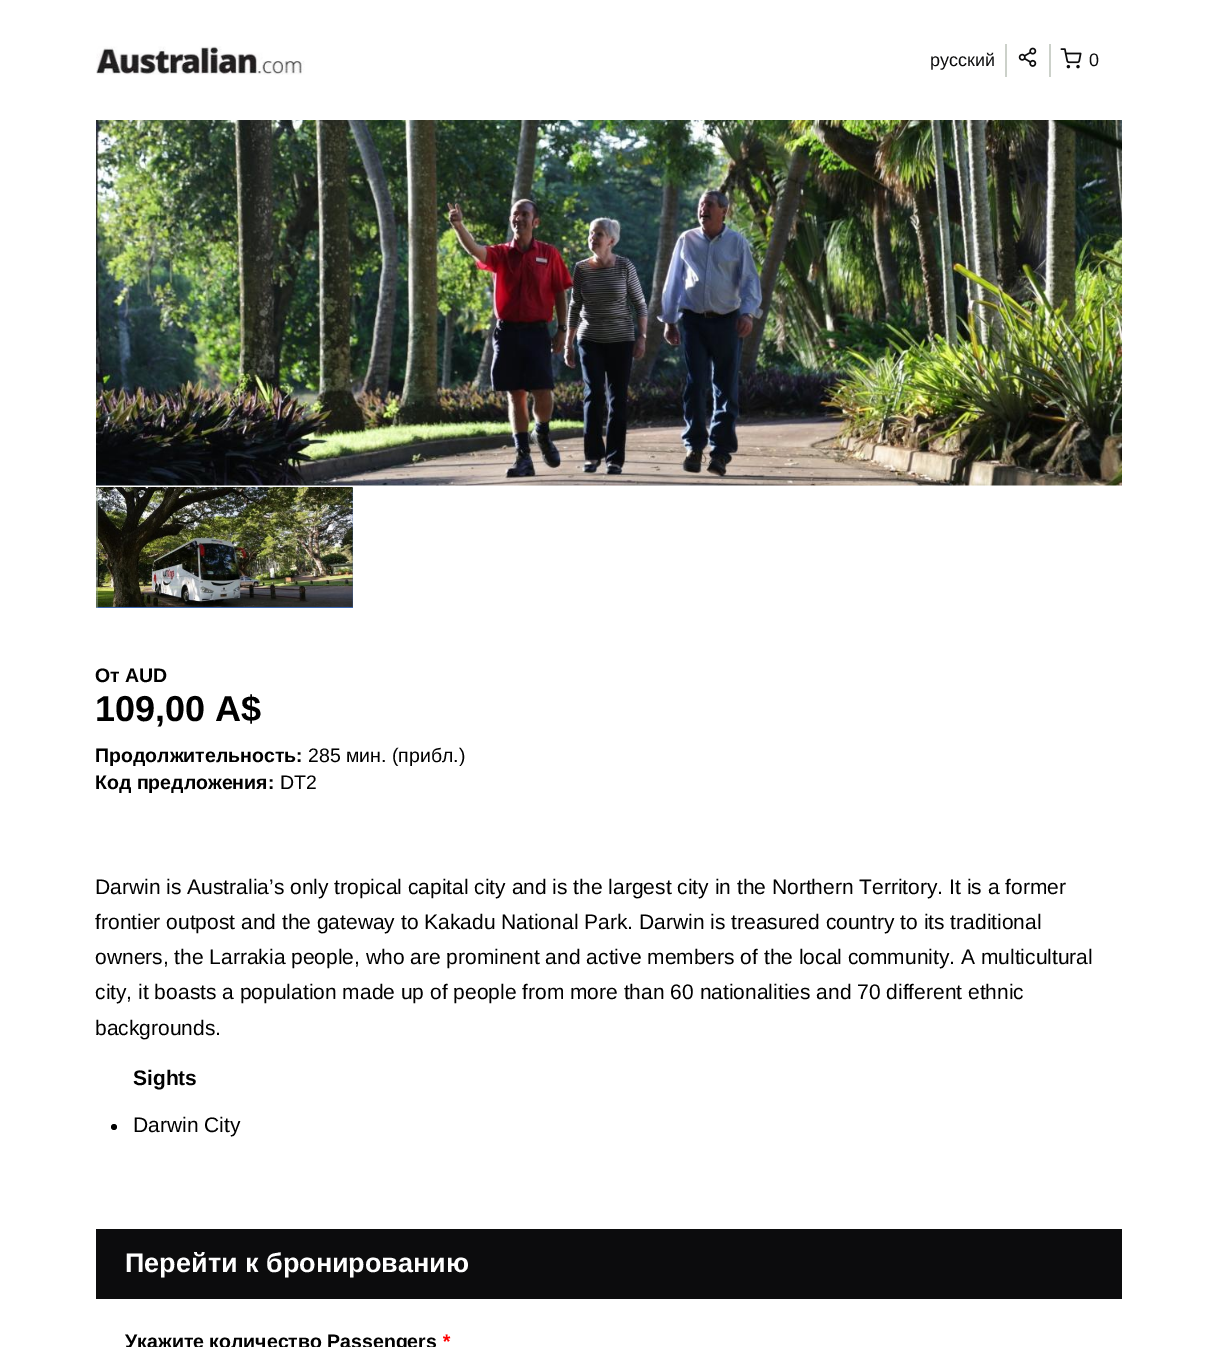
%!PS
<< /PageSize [1216 1347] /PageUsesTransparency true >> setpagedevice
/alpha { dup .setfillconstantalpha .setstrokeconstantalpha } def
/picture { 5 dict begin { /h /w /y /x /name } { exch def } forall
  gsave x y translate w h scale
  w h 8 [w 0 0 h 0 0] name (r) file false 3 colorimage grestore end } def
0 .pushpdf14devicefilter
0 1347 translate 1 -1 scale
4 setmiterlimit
1 setgray
0 0 1216 1347 rectfill
(img1.rgb) 96 46 209 29 picture
0.8 0.82 0.792 setrgbcolor
1005 44 2 33 rectfill
/LiberationSans-Regular [18 0 0 -18 0 0] selectfont
0.047 0.047 0.051 setrgbcolor
930 66 moveto (русский) show
0.8 0.82 0.792 setrgbcolor
1049 44 2 33 rectfill
(img2.rgb) 1018 47 19 20 picture
(img3.rgb) 1060 48 22 21 picture
0.047 0.047 0.051 setrgbcolor
1089 66 moveto (0) show
(img4.rgb) 96 120 1026 366 picture
0.235 0.408 0.706 setrgbcolor
96 488 257 120 rectfill
(img5.rgb) 96 487 257 120 picture
0.5 alpha
0.596 0.639 0.58 setrgbcolor
96 488 2 120 rectfill
/LiberationSans-Bold [19.5 0 0 -19.5 0 0] selectfont
1 alpha
0 setgray
95 682 moveto (От AUD) show
/LiberationSans-Bold [36 0 0 -36 0 0] selectfont
95 721 moveto (109,00 A$) show
/LiberationSans-Bold [19.5 0 0 -19.5 0 0] selectfont
95 762 moveto (Продолжительность:) show
/LiberationSans-Regular [19.5 0 0 -19.5 0 0] selectfont
308 762 moveto (285 мин. \(прибл.\)) show
/LiberationSans-Bold [19.5 0 0 -19.5 0 0] selectfont
95 789 moveto (Код предложения:) show
/LiberationSans-Regular [19.5 0 0 -19.5 0 0] selectfont
280 789 moveto (DT2) show
/LiberationSans-Regular [21 0 0 -21 0 0] selectfont
95 894 moveto (Darwin is Australia’s only tropical capital city and is the largest city in the Northern Territory. It is a former) show
95 929 moveto (frontier outpost and the gateway to Kakadu National Park. Darwin is treasured country to its traditional) show
95 964 moveto (owners, the Larrakia people, who are prominent and active members of the local community. A multicultural) show
95 999 moveto (city, it boasts a population made up of people from more than 60 nationalities and 70 different ethnic) show
95 1035 moveto (backgrounds.) show
/LiberationSans-Bold [21 0 0 -21 0 0] selectfont
133 1085 moveto (Sights) show
newpath 114 1127 3 0 360 arc closepath fill
/LiberationSans-Regular [21 0 0 -21 0 0] selectfont
133 1132 moveto (Darwin City) show
0.047 0.047 0.051 setrgbcolor
96 1229 1026 70 rectfill
/LiberationSans-Bold [27 0 0 -27 0 0] selectfont
1 setgray
125 1272 moveto (Перейти к бронированию) show
/LiberationSans-Bold [19.5 0 0 -19.5 0 0] selectfont
0 setgray
125 1348 moveto (Укажите количество Passengers) show
/LiberationSans-BoldItalic [19.5 0 0 -19.5 0 0] selectfont
1 0 0 setrgbcolor
442 1348 moveto (*) show
.poppdf14devicefilter showpage
